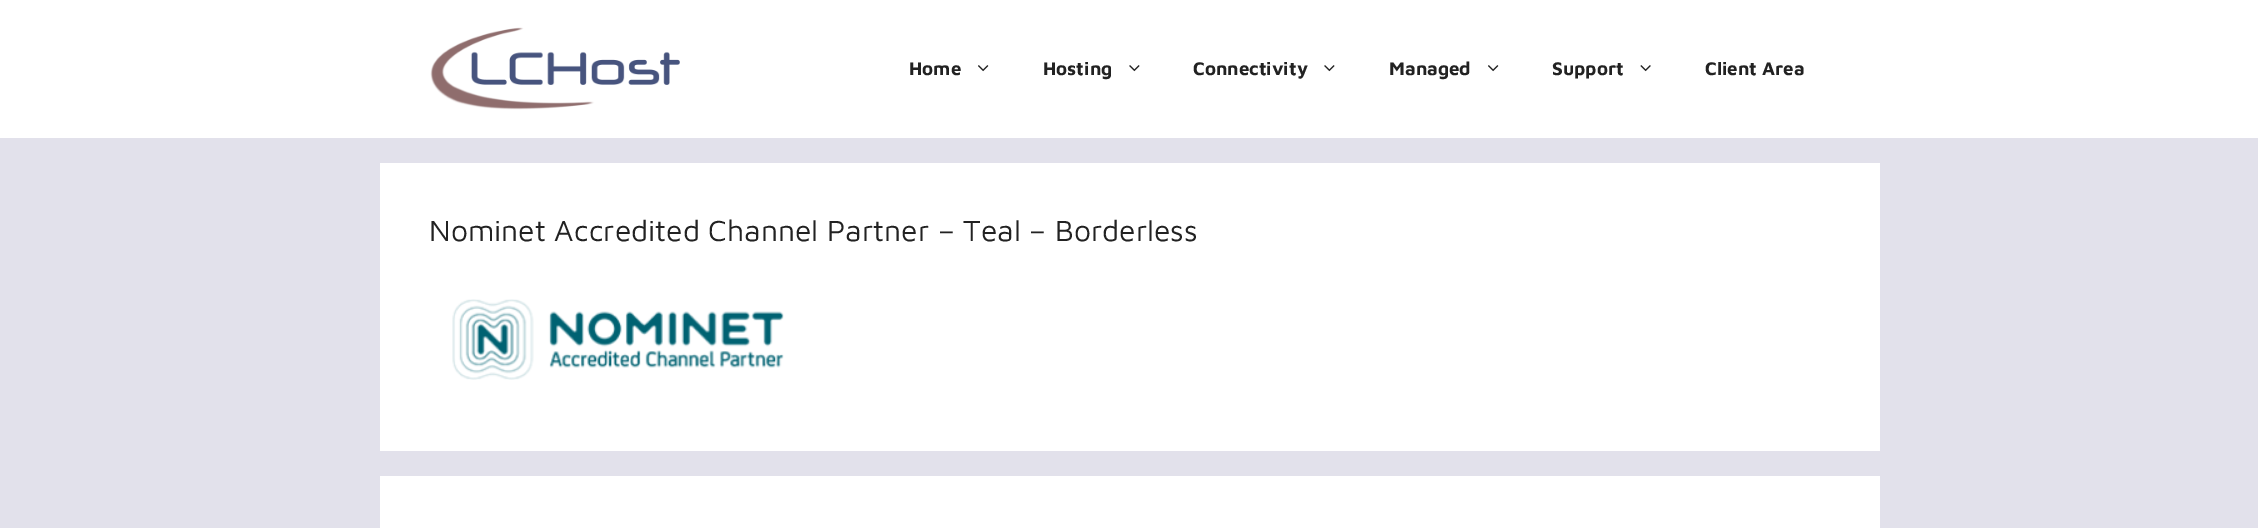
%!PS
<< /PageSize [2258 528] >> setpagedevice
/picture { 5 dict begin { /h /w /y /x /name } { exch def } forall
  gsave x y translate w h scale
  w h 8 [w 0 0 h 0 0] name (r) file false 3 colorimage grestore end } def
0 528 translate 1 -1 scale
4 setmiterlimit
0.886 0.882 0.922 setrgbcolor
0 0 2258 528 rectfill
1 setgray
0 0 2258 138 rectfill
(img1.rgb) 430 27 250 83 picture
/MavenPro-Bold [18.75 0 0 -18.75 0 0] selectfont
0.133 setgray
909 75 moveto (Home) show
(img2.rgb) 978 65 11 7 picture
1043 75 moveto (Hosting) show
(img3.rgb) 1129 65 11 7 picture
1193 75 moveto (Connectivity) show
(img3.rgb) 1324 65 11 7 picture
1389 75 moveto (Managed) show
(img2.rgb) 1488 65 11 7 picture
1552 75 moveto (Support) show
(img4.rgb) 1640 65 11 7 picture
1705 75 moveto (Client Area) show
1 setgray
380 163 1500 288 rectfill
/MavenPro-Regular [30 0 0 -30 0 0] selectfont
0.133 setgray
429 241 moveto (Nominet Accredited Channel Partner – Teal – Borderless) show
(img5.rgb) 452 299 332 81 picture
1 setgray
380 476 1500 52 rectfill
showpage
